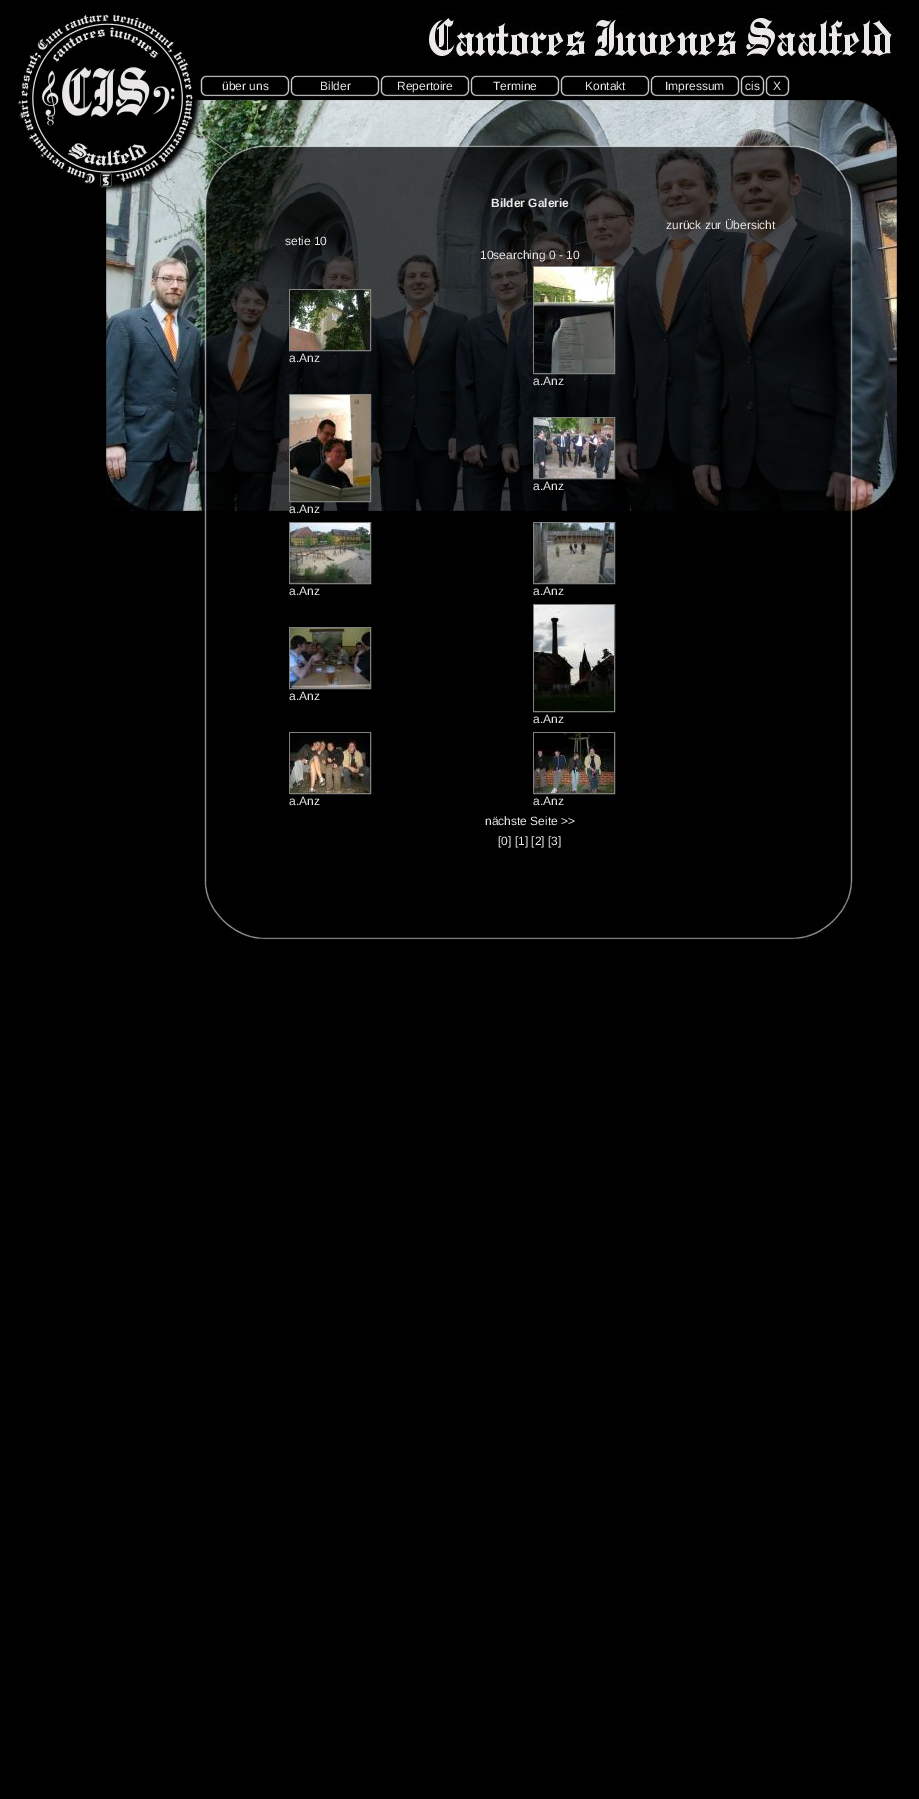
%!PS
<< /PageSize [919 1799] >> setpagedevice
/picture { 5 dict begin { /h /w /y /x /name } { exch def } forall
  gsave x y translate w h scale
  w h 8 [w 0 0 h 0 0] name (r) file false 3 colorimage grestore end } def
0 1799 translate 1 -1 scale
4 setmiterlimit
0 setgray
0 0 919 1799 rectfill
(img1.rgb) 204 513 649 369 picture
(img2.rgb) 18 10 881 194 picture
(img3.rgb) 200 75 90 22 picture
/LiberationSans-Regular [12 0 0 -12 0 0] selectfont
0.91 0.902 0.902 setrgbcolor
222 90 moveto (über uns) show
(img3.rgb) 290 75 90 22 picture
320 90 moveto (Bilder) show
(img3.rgb) 380 75 90 22 picture
397 90 moveto (Repertoire) show
(img3.rgb) 470 75 90 22 picture
493 90 moveto (Termine) show
(img3.rgb) 560 75 90 22 picture
585 90 moveto (Kontakt) show
(img3.rgb) 650 75 90 22 picture
665 90 moveto (Impressum) show
(img4.rgb) 740 75 25 22 picture
745 90 moveto (cis) show
(img4.rgb) 765 75 25 22 picture
773 90 moveto (X) show
(img15.rgb) 105 204 794 309 picture
/LiberationSans-Bold [12 0 0 -12 0 0] selectfont
491 207 moveto (Bilder Galerie) show
/LiberationSans-Regular [12 0 0 -12 0 0] selectfont
666 229 moveto (zurück zur Übersicht) show
285 245 moveto (setie 10) show
480 259 moveto (10searching 0 - 10) show
0.502 setgray
289.5 289.5 81 61 rectstroke
(img5.rgb) 290 290 80 60 picture
0.91 0.902 0.902 setrgbcolor
289 362 moveto (a.Anz) show
0.502 setgray
533.5 266.5 81 107 rectstroke
(img6.rgb) 534 267 80 106 picture
0.91 0.902 0.902 setrgbcolor
533 385 moveto (a.Anz) show
0.502 setgray
533.5 417.5 81 61 rectstroke
(img7.rgb) 534 418 80 60 picture
0.91 0.902 0.902 setrgbcolor
533 490 moveto (a.Anz) show
0.502 setgray
289.5 394.5 81 107 rectstroke
(img8.rgb) 290 395 80 106 picture
0.91 0.902 0.902 setrgbcolor
289 513 moveto (a.Anz) show
0.502 setgray
289.5 522.5 81 61 rectstroke
(img9.rgb) 290 523 80 60 picture
0.91 0.902 0.902 setrgbcolor
289 595 moveto (a.Anz) show
0.502 setgray
533.5 522.5 81 61 rectstroke
(img10.rgb) 534 523 80 60 picture
0.91 0.902 0.902 setrgbcolor
533 595 moveto (a.Anz) show
0.502 setgray
289.5 627.5 81 61 rectstroke
(img11.rgb) 290 628 80 60 picture
0.91 0.902 0.902 setrgbcolor
289 700 moveto (a.Anz) show
0.502 setgray
533.5 604.5 81 107 rectstroke
(img12.rgb) 534 605 80 106 picture
0.91 0.902 0.902 setrgbcolor
533 723 moveto (a.Anz) show
0.502 setgray
289.5 732.5 81 61 rectstroke
(img13.rgb) 290 733 80 60 picture
0.91 0.902 0.902 setrgbcolor
289 805 moveto (a.Anz) show
0.502 setgray
533.5 732.5 81 61 rectstroke
(img14.rgb) 534 733 80 60 picture
0.91 0.902 0.902 setrgbcolor
533 805 moveto (a.Anz) show
485 825 moveto (nächste Seite >>) show
498 845 moveto ([0] [1] [2] [3]) show
(img16.rgb) 204 882 651 59 picture
showpage
